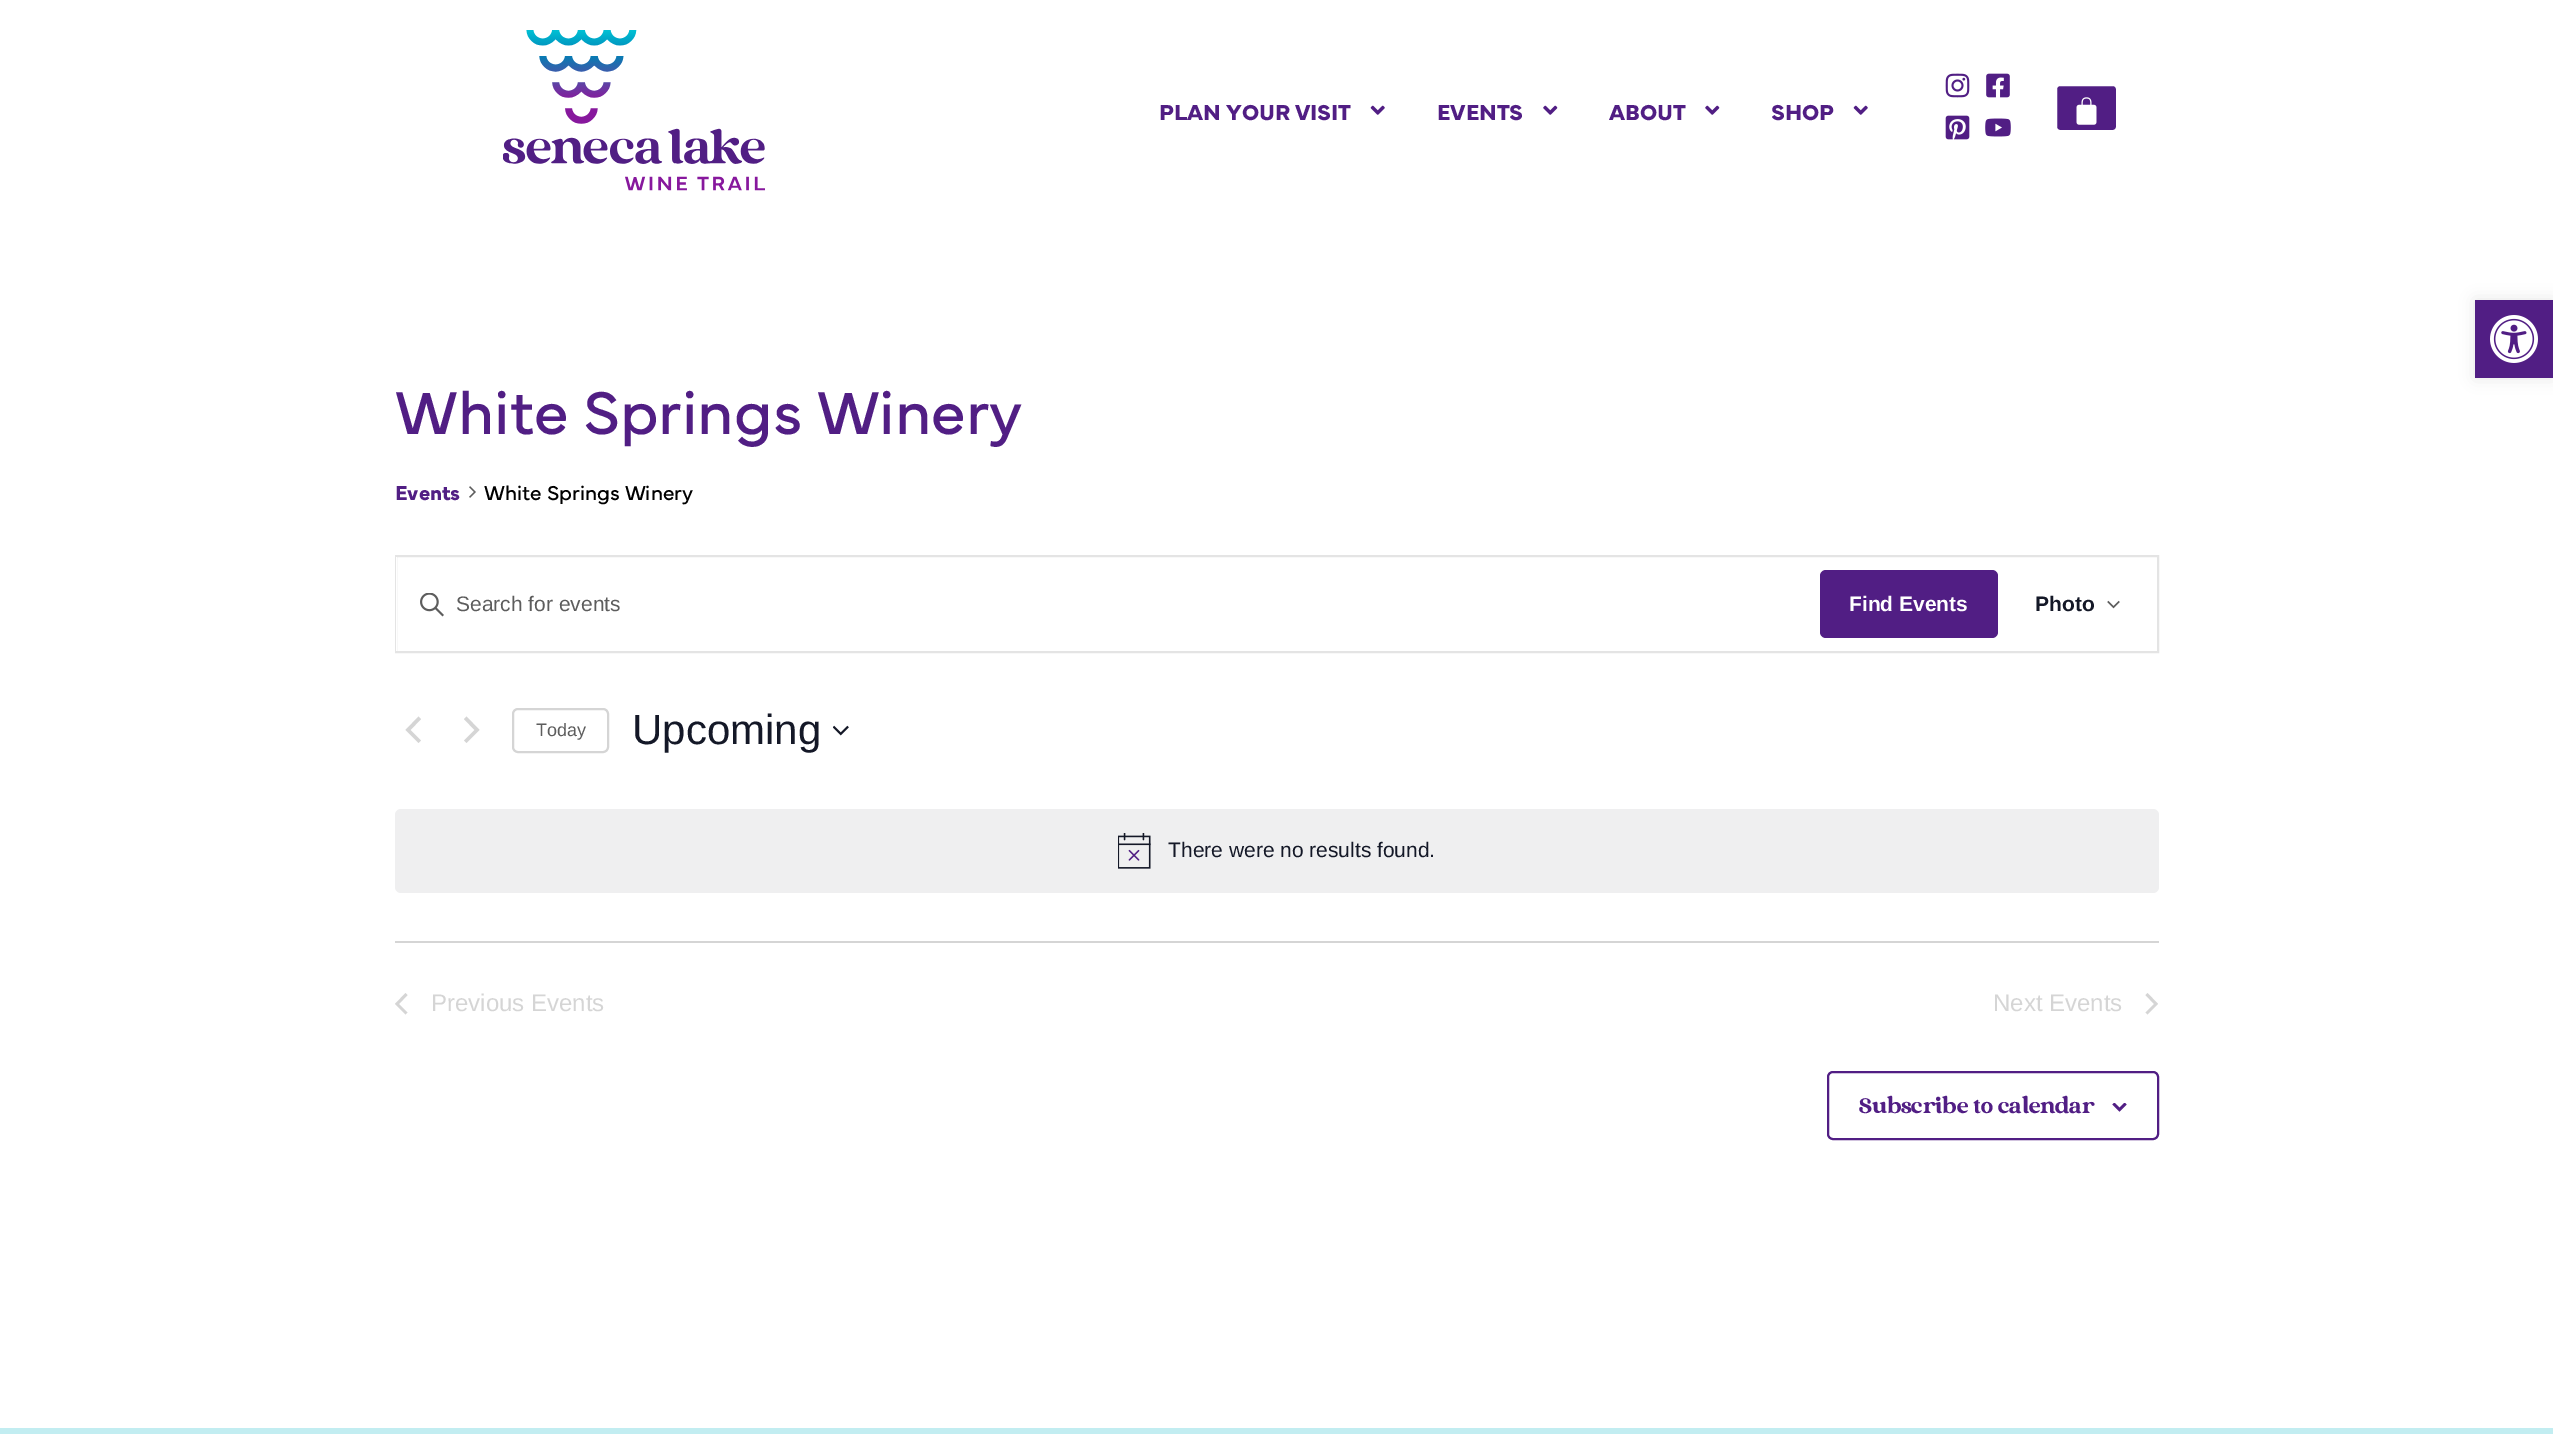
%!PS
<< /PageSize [2553 1434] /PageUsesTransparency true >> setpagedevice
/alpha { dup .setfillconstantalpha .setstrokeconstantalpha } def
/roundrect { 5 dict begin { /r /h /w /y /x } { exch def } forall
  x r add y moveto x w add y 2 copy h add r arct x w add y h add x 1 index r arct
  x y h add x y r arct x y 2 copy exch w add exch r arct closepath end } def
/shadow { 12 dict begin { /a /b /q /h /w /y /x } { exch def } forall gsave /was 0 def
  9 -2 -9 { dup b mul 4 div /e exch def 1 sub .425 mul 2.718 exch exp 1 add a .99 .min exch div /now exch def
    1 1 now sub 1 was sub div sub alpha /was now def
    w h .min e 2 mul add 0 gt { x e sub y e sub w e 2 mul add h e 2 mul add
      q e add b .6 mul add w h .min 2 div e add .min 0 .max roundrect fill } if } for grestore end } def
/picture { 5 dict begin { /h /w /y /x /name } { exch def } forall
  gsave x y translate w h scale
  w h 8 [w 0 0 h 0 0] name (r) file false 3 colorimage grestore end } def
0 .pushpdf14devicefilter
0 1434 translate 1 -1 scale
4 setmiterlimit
1 setgray
0 0 2553 1434 rectfill
(img1.rgb) 503 30 262 161 picture
/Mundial-Bold [22.5 0 0 -22.5 0 0] selectfont
0.318 0.118 0.518 setrgbcolor
1159 120 moveto (PLAN YOUR VISIT) show
(img2.rgb) 1370 105 15 10 picture
1437 120 moveto (EVENTS) show
(img3.rgb) 1543 105 15 10 picture
1609 120 moveto (ABOUT) show
(img3.rgb) 1705 105 15 10 picture
1771 120 moveto (SHOP) show
(img2.rgb) 1853 105 15 10 picture
(img4.rgb) 1945 73 25 25 picture
(img5.rgb) 1986 73 24 25 picture
(img6.rgb) 1945 115 25 25 picture
(img7.rgb) 1985 118 26 19 picture
2056 85 61 46 4 roundrect gsave fill grestore
1 setgray
2 setlinewidth
stroke
(img8.rgb) 2076 97 21 28 picture
0 setgray
2475 300 78 78 0 7.5 0.1 shadow
0.318 0.118 0.518 setrgbcolor
2475 300 78 78 rectfill
(img9.rgb) 2490 315 48 48 picture
/Mundial-Regular [63 0 0 -63 0 0] selectfont
395 434 moveto (White Springs Winery) show
/Mundial-Bold [21 0 0 -21 0 0] selectfont
395 500 moveto (Events) show
(img10.rgb) 469 486 7 12 picture
/Mundial-Regular [21 0 0 -21 0 0] selectfont
0 setgray
484 500 moveto (White Springs Winery) show
0.894 setgray
396 556 1762 96 rectstroke
1 setgray
396 557 1 94 rectfill
(img11.rgb) 420 593 24 24 picture
/LiberationSans-Regular [21 0 0 -21 0 0] selectfont
0.365 setgray
456 611 moveto (Search for events) show
0.318 0.118 0.518 setrgbcolor
1820 570 178 68 6 roundrect fill
/LiberationSans-Bold [21 0 0 -21 0 0] selectfont
1 setgray
1849 611 moveto (Find Events) show
0.078 0.094 0.153 setrgbcolor
2035 611 moveto (Photo) show
(img12.rgb) 2107 600 13 9 picture
0.835 setgray
newpath 421 740.5 moveto 418.5 743 lineto 405.5 730 lineto 418.5 716.5 lineto 421 719 lineto 410.5 730 lineto closepath fill
newpath 464 719 moveto 466.5 716.5 lineto 479.5 730 lineto 466.5 743 lineto 464 740.5 lineto 474.5 730 lineto closepath fill
513 709 95 43 5 roundrect stroke
/LiberationSans-Regular [18 0 0 -18 0 0] selectfont
0.365 setgray
536 736 moveto (Today) show
/LiberationSans-Regular [42 0 0 -42 0 0] selectfont
0.078 0.094 0.153 setrgbcolor
632 744 moveto (Upcoming) show
(img13.rgb) 833 725 16 11 picture
0.937 0.937 0.941 setrgbcolor
395 809 1764 84 6 roundrect fill
(img14.rgb) 1118 833 33 36 picture
/LiberationSans-Regular [21 0 0 -21 0 0] selectfont
0.078 0.094 0.153 setrgbcolor
1168 857 moveto (There were no results found.) show
0.835 setgray
395 941 1764 2 rectfill
newpath 407.5 1012.5 moveto 405.5 1014.5 lineto 395 1004 lineto 405.5 993 lineto 407.5 995 lineto 399 1004 lineto closepath fill
/LiberationSans-Regular [24 0 0 -24 0 0] selectfont
431 1011 moveto (Previous Events) show
1993 1011 moveto (Next Events) show
newpath 2145.5 995 moveto 2147.5 993 lineto 2158 1004 lineto 2147.5 1014.5 lineto 2145.5 1012.5 lineto 2154 1004 lineto closepath fill
0.318 0.118 0.518 setrgbcolor
1828 1072 330 67 5 roundrect stroke
/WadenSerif-Regular [21 0 0 -21 0 0] selectfont
1859 1113 moveto (Subscribe to calendar) show
(img15.rgb) 2112 1103 15 9 picture
0.761 0.929 0.945 setrgbcolor
0 1428 2553 6 rectfill
.poppdf14devicefilter showpage
